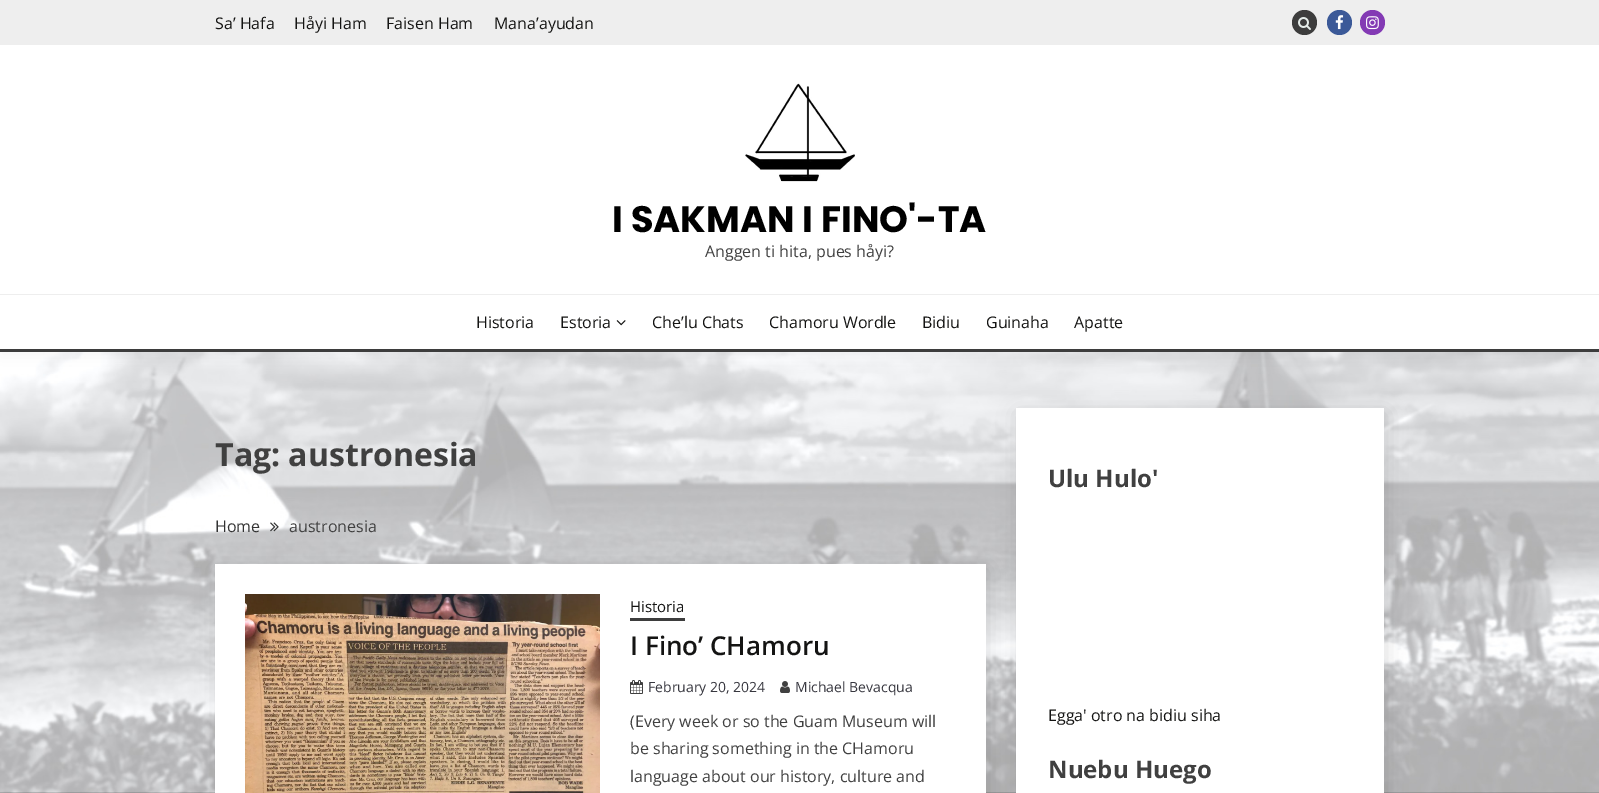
%!PS
<< /PageSize [1599 793] /PageUsesTransparency true >> setpagedevice
/alpha { dup .setfillconstantalpha .setstrokeconstantalpha } def
/roundrect { 5 dict begin { /r /h /w /y /x } { exch def } forall
  x r add y moveto x w add y 2 copy h add r arct x w add y h add x 1 index r arct
  x y h add x y r arct x y 2 copy exch w add exch r arct closepath end } def
/shadow { 12 dict begin { /a /b /q /h /w /y /x } { exch def } forall gsave /was 0 def
  9 -2 -9 { dup b mul 4 div /e exch def 1 sub .425 mul 2.718 exch exp 1 add a .99 .min exch div /now exch def
    1 1 now sub 1 was sub div sub alpha /was now def
    w h .min e 2 mul add 0 gt { x e sub y e sub w e 2 mul add h e 2 mul add
      q e add b .6 mul add w h .min 2 div e add .min 0 .max roundrect fill } if } for grestore end } def
/picture { 5 dict begin { /h /w /y /x /name } { exch def } forall
  gsave x y translate w h scale
  w h 8 [w 0 0 h 0 0] name (r) file false 3 colorimage grestore end } def
0 .pushpdf14devicefilter
0 793 translate 1 -1 scale
4 setmiterlimit
1 setgray
0 0 1599 793 rectfill
(img1.rgb) 0 352 1599 441 picture
0 setgray
0 5 1599 352 0 7.5 0.04 shadow
1 setgray
0 45 1599 304 rectfill
0.933 setgray
0 0 1599 45 rectfill
/OpenSans-Regular [16 0 0 -16 0 0] selectfont
0.078 0.078 0.075 setrgbcolor
215 29 moveto (Sa’ Hafa) show
294 29 moveto (Håyi Ham) show
386 29 moveto (Faisen Ham) show
494 29 moveto (Mana’ayudan) show
0.239 setgray
newpath 1304.5 22.5 12.5 0 360 arc closepath fill
(img2.rgb) 1298 17 13 13 picture
0.231 0.349 0.596 setrgbcolor
newpath 1339.5 22.5 12.5 0 360 arc closepath fill
(img3.rgb) 1335 15 9 15 picture
0.514 0.227 0.706 setrgbcolor
newpath 1372.5 22.5 12.5 0 360 arc closepath fill
(img4.rgb) 1366 16 13 14 picture
0.933 setgray
0 294 1599 1 rectfill
(img5.rgb) 745 83 110 99 picture
/Poppins-Bold [36.75 0 0 -36.75 0 0] selectfont
0 setgray
612 232 moveto (I SAKMAN I FINO'-TA) show
/OpenSans-Regular [16 0 0 -16 0 0] selectfont
0.251 setgray
705 257 moveto (Anggen ti hita, pues håyi?) show
0.239 setgray
0 349 1599 3 rectfill
0.078 0.078 0.075 setrgbcolor
476 328 moveto (Historia) show
560 328 moveto (Estoria) show
(img6.rgb) 616 320 10 6 picture
652 328 moveto (Che’lu Chats) show
769 328 moveto (Chamoru Wordle) show
922 328 moveto (Bidiu) show
986 328 moveto (Guinaha) show
1074 328 moveto (Apatte) show
/OpenSans-Bold [32 0 0 -32 0 0] selectfont
0.251 setgray
215 466 moveto (Tag: austronesia) show
/OpenSans-Regular [16 0 0 -16 0 0] selectfont
0.2 setgray
215 532 moveto (Home) show
(img7.rgb) 270 522 9 10 picture
0.251 setgray
289 532 moveto (austronesia) show
0 setgray
217 569 771 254 0 10 0.14 shadow
1 setgray
215 564 771 229 rectfill
(img8.rgb) 245 594 355 199 picture
/OpenSans-Regular [15 0 0 -15 0 0] selectfont
0.078 0.078 0.075 setrgbcolor
630 612 moveto (Historia) show
0.239 setgray
630 618 55 3 rectfill
/OpenSans-SemiBold [26 0 0 -26 0 0] selectfont
0.078 0.078 0.075 setrgbcolor
630 655 moveto (I Fino’ CHamoru) show
(img9.rgb) 630 680 13 14 picture
/OpenSans-Regular [14 0 0 -14 0 0] selectfont
0.216 0.216 0.247 setrgbcolor
648 692 moveto (February 20, 2024) show
(img10.rgb) 780 681 10 12 picture
795 692 moveto (Michael Bevacqua) show
/OpenSans-Regular [16 0 0 -16 0 0] selectfont
0.251 setgray
630 727 moveto (\(Every week or so the Guam Museum will) show
630 754 moveto (be sharing something in the CHamoru) show
630 782 moveto (language about our history, culture and) show
0 setgray
1018 413 368 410 0 10 0.14 shadow
1 setgray
1016 408 368 385 rectfill
/OpenSans-Bold [24 0 0 -24 0 0] selectfont
0.251 setgray
1048 487 moveto (Ulu Hulo') show
/OpenSans-Regular [16 0 0 -16 0 0] selectfont
0.078 0.078 0.075 setrgbcolor
1048 721 moveto (Egga' otro na bidiu siha) show
/OpenSans-Bold [24 0 0 -24 0 0] selectfont
0.251 setgray
1048 778 moveto (Nuebu Huego) show
.poppdf14devicefilter showpage
